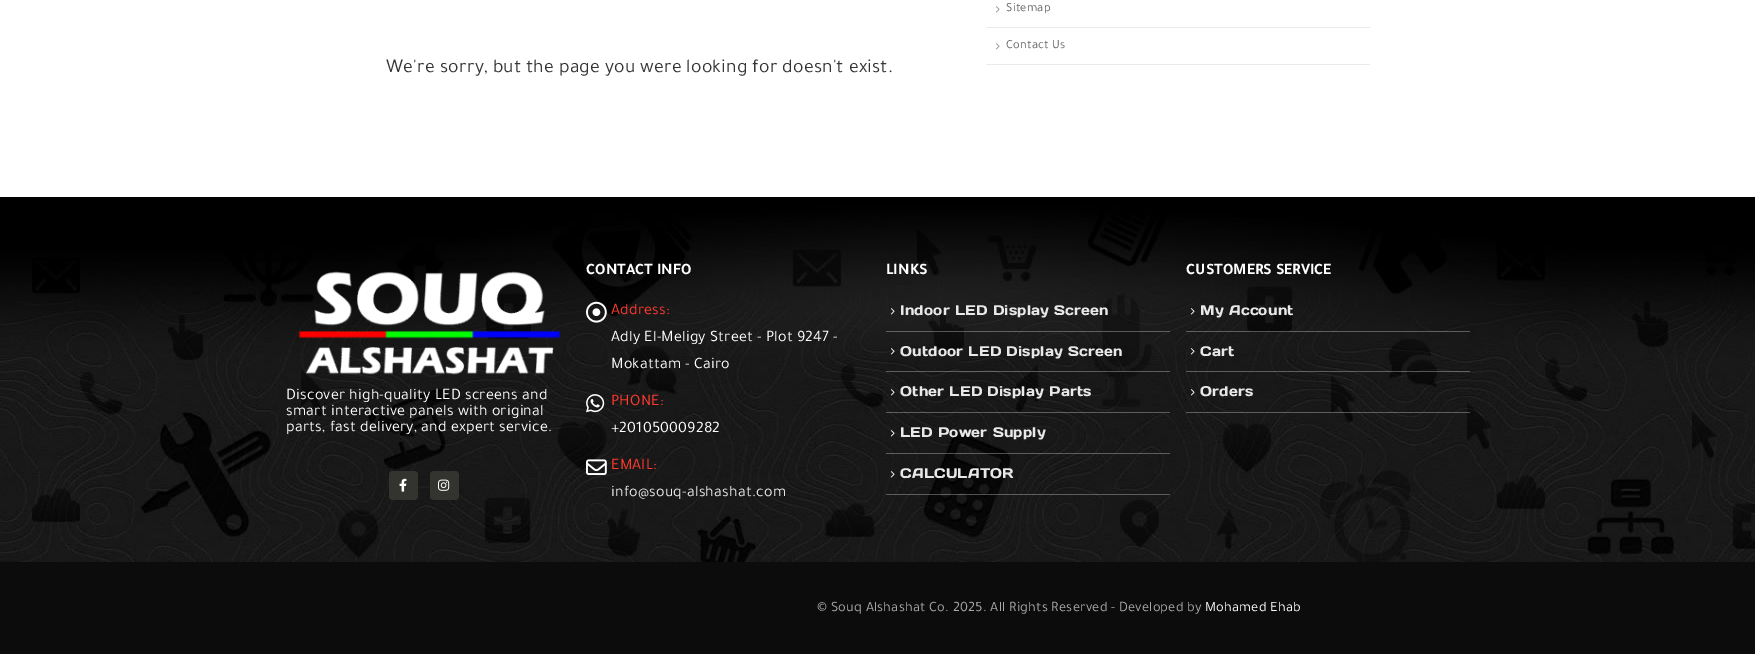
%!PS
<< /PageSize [1755 654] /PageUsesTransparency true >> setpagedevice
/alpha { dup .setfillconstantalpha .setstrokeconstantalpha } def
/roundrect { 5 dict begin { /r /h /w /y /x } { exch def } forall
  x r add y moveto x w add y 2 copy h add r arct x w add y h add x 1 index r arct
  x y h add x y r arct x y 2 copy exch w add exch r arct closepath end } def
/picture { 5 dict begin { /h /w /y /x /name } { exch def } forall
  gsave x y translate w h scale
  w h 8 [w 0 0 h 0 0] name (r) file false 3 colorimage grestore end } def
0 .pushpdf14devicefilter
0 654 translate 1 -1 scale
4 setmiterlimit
1 setgray
0 0 1755 654 rectfill
0.922 setgray
986 27 384 1 rectfill
(img1.rgb) 996 6 4 7 picture
/Tajawal-Regular [12.5 0 0 -12.5 0 0] selectfont
0.4 setgray
1006 11 moveto 0.2 0 (Sitemap) ashow
0.922 setgray
986 64 384 1 rectfill
(img1.rgb) 996 43 4 7 picture
0.4 setgray
1006 48 moveto 0.2 0 (Contact Us) ashow
/Tajawal-Regular [19.6 0 0 -19.6 0 0] selectfont
0.208 setgray
386 72 moveto 0.2 0 (We're sorry, but the page you were looking for doesn't exist.) ashow
(img2.rgb) 0 197 1755 365 picture
/Tajawal-Bold [16 0 0 -16 0 0] selectfont
1 setgray
586 274 moveto (CONTACT INFO) show
(img3.rgb) 586 301 21 22 picture
/Tajawal-Regular [16 0 0 -16 0 0] selectfont
1 0.227 0.176 setrgbcolor
611 314 moveto 0.2 0 (Address:) ashow
1 setgray
611 341 moveto 0.2 0 (Adly El-Meligy Street - Plot 9247 -) ashow
611 368 moveto 0.2 0 (Mokattam - Cairo) ashow
(img4.rgb) 586 394 19 19 picture
1 0.227 0.176 setrgbcolor
611 405 moveto 0.2 0 (PHONE:) ashow
1 setgray
611 432 moveto 0.2 0 (+201050009282) ashow
(img5.rgb) 586 459 21 16 picture
1 0.227 0.176 setrgbcolor
611 469 moveto 0.2 0 (EMAIL:) ashow
0.91 setgray
611 496 moveto 0.2 0 (info@souq-alshashat.com) ashow
/Tajawal-Bold [16 0 0 -16 0 0] selectfont
1 setgray
886 274 moveto (LINKS) show
0.3 alpha
886 494 284 1 rectfill
1 alpha
(img6.rgb) 890 308 5 7 picture
/DaysOne-Regular [14 0 0 -14 0 0] selectfont
0.91 setgray
900 315 moveto 0.2 0 (Indoor LED Display Screen) ashow
0.3 alpha
1 setgray
886 331 284 1 rectfill
1 alpha
(img7.rgb) 890 348 5 7 picture
0.91 setgray
900 356 moveto 0.2 0 (Outdoor LED Display Screen) ashow
0.3 alpha
1 setgray
886 371 284 1 rectfill
1 alpha
(img8.rgb) 890 389 5 7 picture
0.91 setgray
900 396 moveto 0.2 0 (Other LED Display Parts) ashow
0.3 alpha
1 setgray
886 412 284 1 rectfill
1 alpha
(img9.rgb) 890 430 5 7 picture
0.91 setgray
900 437 moveto 0.2 0 (LED Power Supply) ashow
0.3 alpha
1 setgray
886 453 284 1 rectfill
1 alpha
(img10.rgb) 890 471 5 7 picture
0.91 setgray
900 478 moveto 0.2 0 (CALCULATOR) ashow
/Tajawal-Bold [16 0 0 -16 0 0] selectfont
1 setgray
1186 274 moveto (CUSTOMERS SERVICE) show
0.3 alpha
1186 412 284 1 rectfill
1 alpha
(img11.rgb) 1190 308 5 7 picture
/DaysOne-Regular [14 0 0 -14 0 0] selectfont
0.91 setgray
1200 315 moveto 0.2 0 (My Account) ashow
0.3 alpha
1 setgray
1186 331 284 1 rectfill
1 alpha
(img12.rgb) 1190 348 5 7 picture
0.91 setgray
1200 356 moveto 0.2 0 (Cart) ashow
0.3 alpha
1 setgray
1186 371 284 1 rectfill
1 alpha
(img13.rgb) 1190 389 5 7 picture
0.91 setgray
1200 396 moveto 0.2 0 (Orders) ashow
(img14.rgb) 298 271 263 104 picture
/Tajawal-Regular [16 0 0 -16 0 0] selectfont
1 setgray
286 399 moveto 0.2 0 (Discover high-quality LED screens and) ashow
286 415 moveto 0.2 0 (smart interactive panels with original) ashow
286 431 moveto 0.2 0 (parts, fast delivery, and expert service.) ashow
0.2 0.2 0.184 setrgbcolor
389 471 29 29 4 roundrect fill
(img15.rgb) 399 478 8 14 picture
430 471 29 29 4 roundrect fill
(img16.rgb) 438 479 12 12 picture
0.047 setgray
0 562 1755 92 rectfill
/Tajawal-Regular [14.4 0 0 -14.4 0 0] selectfont
0.659 setgray
817 611 moveto 0.2 0 (© Souq Alshashat Co. 2025. All Rights Reserved - Developed by) ashow
1 setgray
1205 611 moveto 0.2 0 (Mohamed Ehab) ashow
.poppdf14devicefilter showpage
